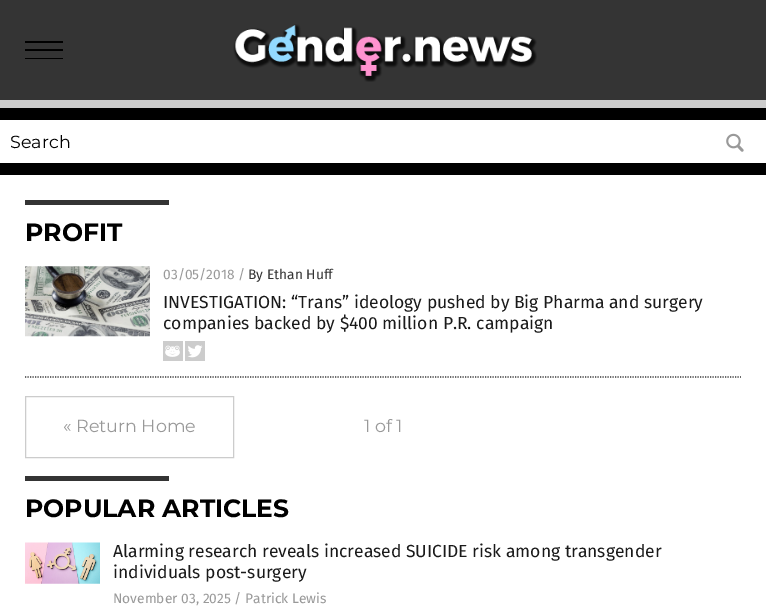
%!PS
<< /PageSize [766 609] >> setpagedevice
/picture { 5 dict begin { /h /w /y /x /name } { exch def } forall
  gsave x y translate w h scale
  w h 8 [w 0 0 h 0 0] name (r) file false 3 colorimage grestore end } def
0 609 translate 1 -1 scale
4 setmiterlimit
0 setgray
0 0 766 609 rectfill
0.204 setgray
0 0 766 100 rectfill
0 setgray
25 58 38 1 rectfill
25 49 38 2 rectfill
25 41 38 2 rectfill
(img1.rgb) 233 24 304 58 picture
0.8 setgray
0 100 766 8 rectfill
1 setgray
0 120 766 43 rectfill
/Montserrat-Regular [17.5 0 0 -17.5 0 0] selectfont
0 setgray
10 148 moveto (Search) show
(img2.rgb) 726 133 18 19 picture
1 setgray
0 175 766 434 rectfill
0.204 setgray
25 200 144 5 rectfill
/Montserrat-Bold [25 0 0 -25 0 0] selectfont
0 setgray
25 241 moveto (PROFIT) show
0.204 setgray
1.2 setlinewidth
[1.25 1.25] 0 setdash
newpath 25 377 moveto 741 377 lineto stroke
(img3.rgb) 25 266 125 71 picture
/FiraSans-Regular [13.75 0 0 -13.75 0 0] selectfont
0.6 setgray
163 279 moveto (03/05/2018 /) show
0.2 setgray
248 279 moveto (By Ethan Huff) show
/FiraSans-Regular [17.5 0 0 -17.5 0 0] selectfont
0.102 setgray
163 308 moveto (INVESTIGATION: “Trans” ideology pushed by Big Pharma and surgery) show
163 329 moveto (companies backed by $400 million P.R. campaign) show
(img4.rgb) 163 341 20 20 picture
(img5.rgb) 185 341 20 20 picture
0.8 setgray
1 setlinewidth
[] 0 setdash
25.5 396.5 208 61 rectstroke
/Montserrat-Regular [17.5 0 0 -17.5 0 0] selectfont
0.6 setgray
63 432 moveto (« Return Home) show
364 432 moveto (1 of 1) show
0.204 setgray
25 476 144 5 rectfill
/Montserrat-Bold [25 0 0 -25 0 0] selectfont
0 setgray
25 517 moveto (POPULAR ARTICLES) show
(img6.rgb) 25 542 75 42 picture
/FiraSans-Regular [17.5 0 0 -17.5 0 0] selectfont
0.102 setgray
113 557 moveto (Alarming research reveals increased SUICIDE risk among transgender) show
113 578 moveto (individuals post-surgery) show
/FiraSans-Regular [13.75 0 0 -13.75 0 0] selectfont
0.6 setgray
113 603 moveto (November 03, 2025 / Patrick Lewis) show
showpage
